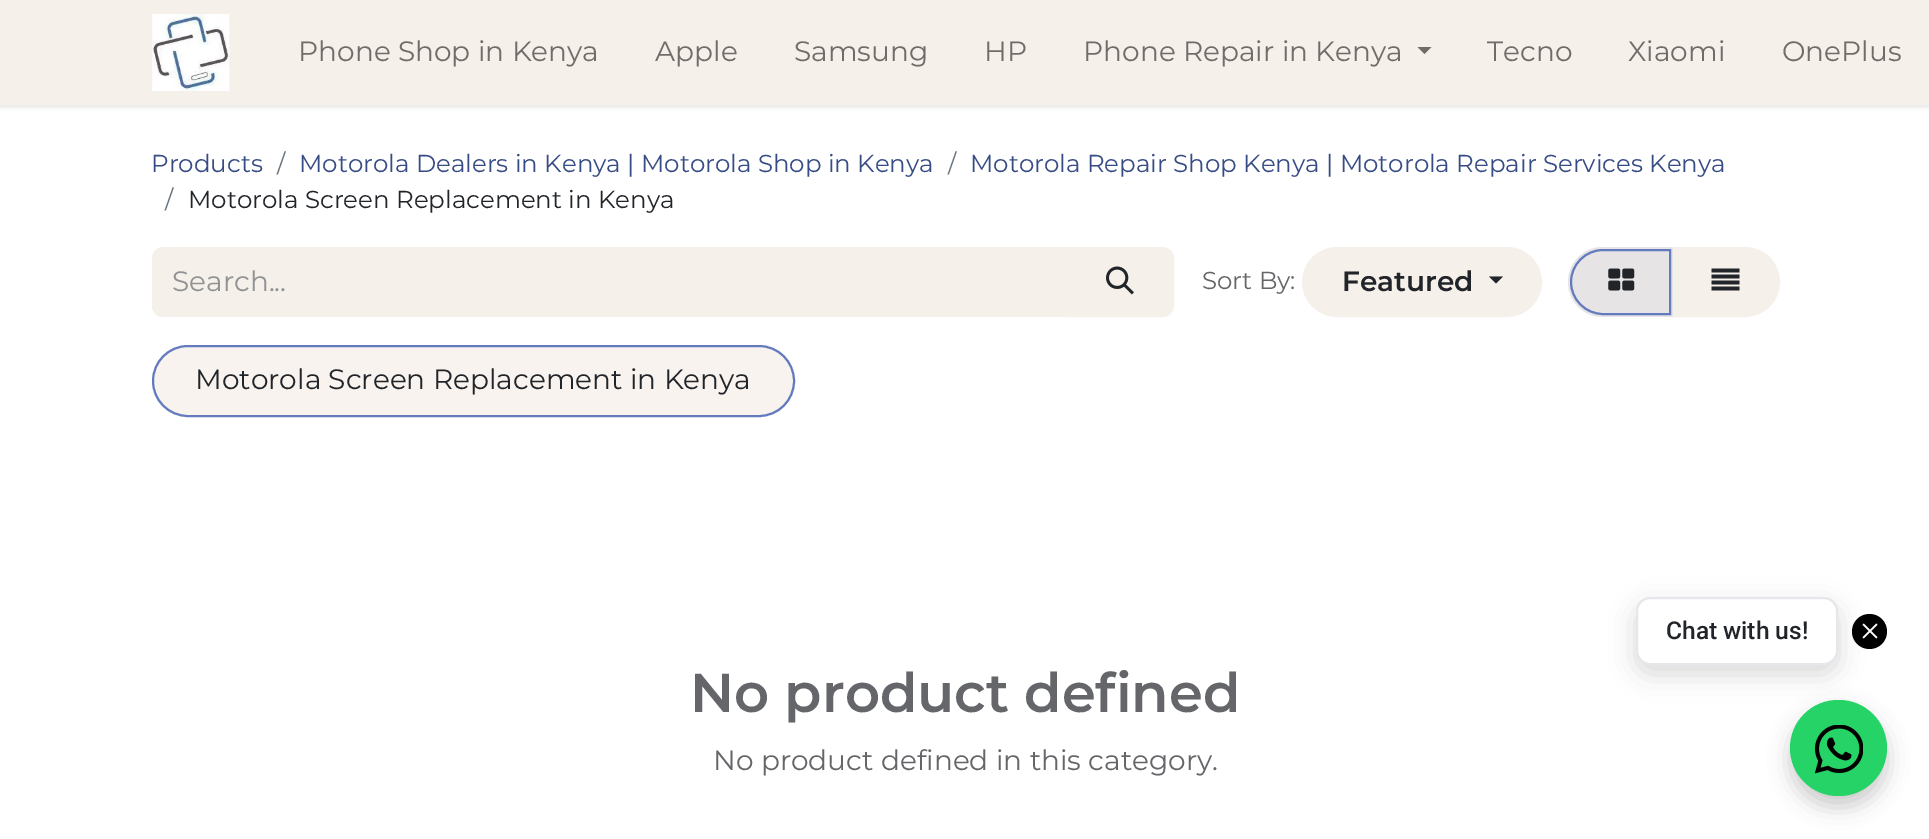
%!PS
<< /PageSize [1929 839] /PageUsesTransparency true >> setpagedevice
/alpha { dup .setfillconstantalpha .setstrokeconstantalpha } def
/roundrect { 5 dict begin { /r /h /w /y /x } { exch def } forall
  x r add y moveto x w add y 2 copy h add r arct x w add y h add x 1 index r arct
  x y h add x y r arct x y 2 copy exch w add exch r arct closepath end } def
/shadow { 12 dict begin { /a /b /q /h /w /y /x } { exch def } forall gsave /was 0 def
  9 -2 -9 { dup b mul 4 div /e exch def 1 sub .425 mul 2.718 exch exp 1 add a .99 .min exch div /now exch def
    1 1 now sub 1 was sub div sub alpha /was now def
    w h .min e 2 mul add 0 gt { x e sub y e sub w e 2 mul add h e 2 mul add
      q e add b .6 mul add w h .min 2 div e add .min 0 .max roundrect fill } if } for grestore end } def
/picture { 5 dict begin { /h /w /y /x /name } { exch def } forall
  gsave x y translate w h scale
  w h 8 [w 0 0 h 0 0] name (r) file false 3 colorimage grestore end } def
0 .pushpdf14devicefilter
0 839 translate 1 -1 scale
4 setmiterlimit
1 setgray
0 0 1929 839 rectfill
0 setgray
0 2 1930 105 0 2.5 0.1 shadow
0.965 0.941 0.918 setrgbcolor
0 0 1929 105 rectfill
(img1.rgb) 152 14 78 77 picture
/Montserrat-Regular [28 0 0 -28 0 0] selectfont
0.435 0.424 0.412 setrgbcolor
298 61 moveto (Phone Shop in Kenya) show
655 61 moveto (Apple) show
794 61 moveto (Samsung) show
984 61 moveto (HP) show
1083 61 moveto (Phone Repair in Kenya) show
newpath 1417.5 47 moveto 1431.5 47 lineto 1424.5 54 lineto closepath fill
1487 61 moveto (Tecno) show
1628 61 moveto (Xiaomi) show
1782 61 moveto (OnePlus) show
/Montserrat-Regular [24.5 0 0 -24.5 0 0] selectfont
0.216 0.294 0.518 setrgbcolor
151 172 moveto (Products) show
0.424 0.459 0.49 setrgbcolor
277 172 moveto (/) show
0.216 0.294 0.518 setrgbcolor
299 172 moveto (Motorola Dealers in Kenya | Motorola Shop in Kenya) show
0.424 0.459 0.49 setrgbcolor
948 172 moveto (/) show
0.216 0.294 0.518 setrgbcolor
970 172 moveto (Motorola Repair Shop Kenya | Motorola Repair Services Kenya) show
0.424 0.459 0.49 setrgbcolor
165 208 moveto (/) show
0.129 0.145 0.161 setrgbcolor
188 208 moveto (Motorola Screen Replacement in Kenya) show
0.965 0.941 0.918 setrgbcolor
newpath 163 247 moveto 1068 247 lineto 1068 317 lineto 163 317 lineto 157 317 152 312 152 306 curveto 152 258 lineto 152 252 157 247 163 247 curveto closepath fill
/Montserrat-Regular [28 0 0 -28 0 0] selectfont
0.565 0.573 0.58 setrgbcolor
172 291 moveto (Search...) show
0.965 0.941 0.918 setrgbcolor
newpath 1067 248 moveto 1163 248 lineto 1168.5 248 1173 252.5 1173 258 curveto 1173 306 lineto 1173 311.5 1168.5 316 1163 316 curveto 1067 316 lineto closepath gsave fill grestore
2 setlinewidth
stroke
(img2.rgb) 1106 266 28 29 picture
/Montserrat-Regular [24.5 0 0 -24.5 0 0] selectfont
0.392 0.4 0.412 setrgbcolor
1202 289 moveto (Sort By:) show
0.965 0.941 0.918 setrgbcolor
1303 248 238 68 34 roundrect gsave fill grestore
stroke
/Montserrat-SemiBold [28 0 0 -28 0 0] selectfont
0.129 0.145 0.161 setrgbcolor
1342 291 moveto (Featured) show
newpath 1489 276.5 moveto 1503 276.5 lineto 1496 283.5 lineto closepath fill
0.965 0.941 0.918 setrgbcolor
newpath 1672 248 moveto 1745 248 lineto 1764 248 1779 263 1779 282 curveto 1779 301 1764 316 1745 316 curveto 1672 316 lineto closepath gsave fill grestore
stroke
0.906 0.894 0.902 setrgbcolor
newpath 1603 247 moveto 1673 247 lineto 1673 317 lineto 1603 317 lineto 1583.5 317 1568 301.5 1568 282 curveto 1568 262.5 1583.5 247 1603 247 curveto closepath fill
0.388 0.482 0.745 setrgbcolor
newpath 1603 250 moveto 1670 250 lineto 1670 314 lineto 1603 314 lineto 1585.5 314 1571 299.5 1571 282 curveto 1571 264.5 1585.5 250 1603 250 curveto closepath stroke
(img3.rgb) 1608 268 27 23 picture
(img4.rgb) 1711 268 29 23 picture
0.973 0.953 0.933 setrgbcolor
153 346 641 70 35 roundrect gsave fill grestore
0.388 0.482 0.745 setrgbcolor
stroke
/Montserrat-Regular [28 0 0 -28 0 0] selectfont
0.129 0.145 0.161 setrgbcolor
195 389 moveto (Motorola Screen Replacement in Kenya) show
/Montserrat-SemiBold [54.5 0 0 -54.5 0 0] selectfont
0.392 0.4 0.412 setrgbcolor
690 712 moveto (No product defined) show
/Montserrat-Regular [28 0 0 -28 0 0] selectfont
713 770 moveto (No product defined in this category.) show
0 setgray
newpath 1869.5 631.5 17.5 0 360 arc closepath fill
1790 711 97 96 48 10.5 0.2 shadow
0.145 0.827 0.4 setrgbcolor
1790 700 97 96 48 roundrect fill
0 setgray
1636 606 202 68 14 13 0.15 shadow
1 setgray
1637 598 200 66 13 roundrect gsave fill grestore
0.898 0.906 0.922 setrgbcolor
stroke
/Roboto-Medium [24.5 0 0 -24.5 0 0] selectfont
0.129 0.145 0.161 setrgbcolor
1666 639 moveto (Chat with us!) show
1 setgray
1.6 setlinewidth
1 setlinecap
1 setlinejoin
newpath 1863.5 637.5 moveto 1876.5 624.5 lineto 1863.5 624.5 moveto 1876.5 637.5 lineto stroke
(img5.rgb) 1815 725 48 49 picture
.poppdf14devicefilter showpage
